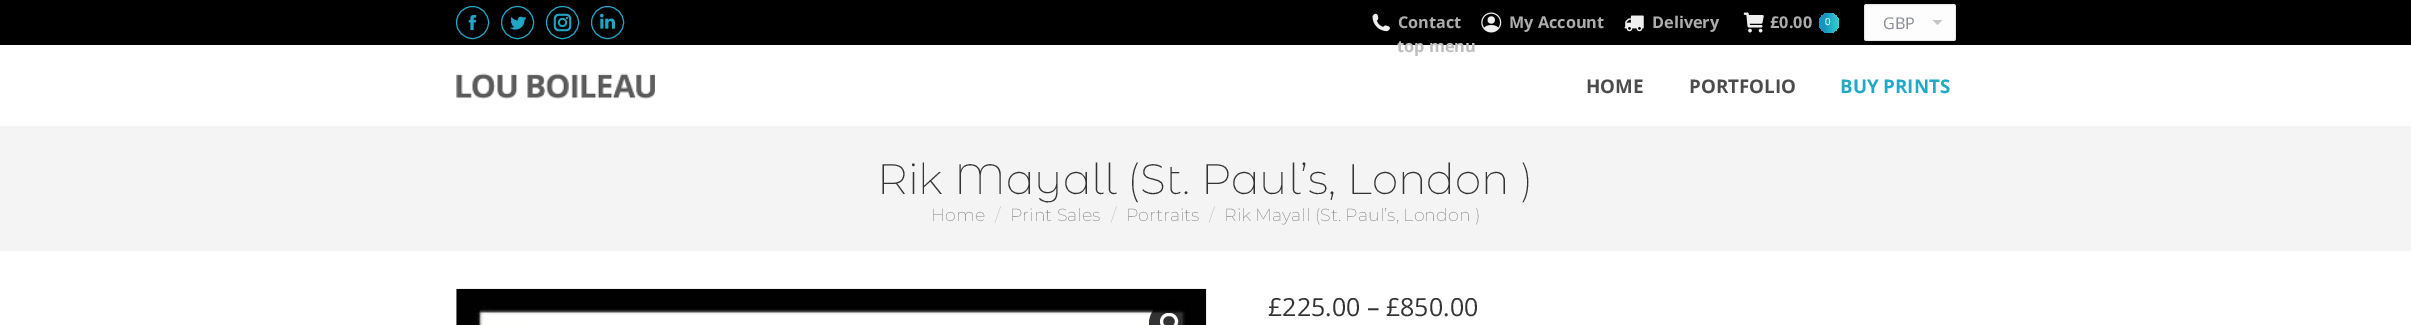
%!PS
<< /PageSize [2411 325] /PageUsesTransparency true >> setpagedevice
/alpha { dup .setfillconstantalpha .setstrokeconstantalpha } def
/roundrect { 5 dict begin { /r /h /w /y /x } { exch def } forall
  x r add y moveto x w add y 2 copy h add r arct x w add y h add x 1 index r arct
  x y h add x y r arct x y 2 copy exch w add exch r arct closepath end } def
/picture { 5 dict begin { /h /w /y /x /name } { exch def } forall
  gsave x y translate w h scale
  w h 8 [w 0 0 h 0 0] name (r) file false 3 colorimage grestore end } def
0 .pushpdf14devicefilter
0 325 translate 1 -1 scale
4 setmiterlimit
1 setgray
0 0 2411 325 rectfill
0 setgray
0 0 2411 45 rectfill
0.125 0.655 0.773 setrgbcolor
newpath 472.5 22.5 16 0 360 arc closepath stroke
(img1.rgb) 468 15 9 15 picture
newpath 517.5 22.5 16 0 360 arc closepath stroke
(img2.rgb) 510 16 16 14 picture
newpath 562.5 22.5 16 0 360 arc closepath stroke
(img3.rgb) 553 13 19 19 picture
newpath 607.5 22.5 16 0 360 arc closepath stroke
(img4.rgb) 600 13 15 16 picture
(img5.rgb) 1372 13 18 19 picture
/OpenSans-Bold [16.25 0 0 -16.25 0 0] selectfont
0.678 setgray
1398 28 moveto (Contact) show
(img6.rgb) 1481 12 21 21 picture
1509 28 moveto (My Account) show
(img7.rgb) 1624 15 20 17 picture
1652 28 moveto (Delivery) show
0.745 setgray
1397 52 moveto (top menu) show
(img8.rgb) 1743 12 21 21 picture
0.678 setgray
1770 28 moveto (£0.00) show
gsave newpath 1829 23 10 0 360 arc closepath clip newpath
<< /ShadingType 2 /ColorSpace /DeviceRGB /Coords [1819 23 1839 23] /Extend [true true] /Function << /FunctionType 3 /Domain [0 1] /Functions [<< /FunctionType 2 /Domain [0 1] /C0 [0.086 0.584 0.749] /C1 [0.086 0.584 0.749] /N 1 >> << /FunctionType 2 /Domain [0 1] /C0 [0.086 0.584 0.749] /C1 [0.212 0.808 0.82] /N 1 >>] /Bounds [0.3] /Encode [0 1 0 1] >> >> shfill grestore
/LiberationSans-Regular [10 0 0 -10 0 0] selectfont
1 setgray
1825 25 moveto (0) show
0.992 setgray
1864 4 92 37 2.5 roundrect fill
0.769 0.773 0.788 setrgbcolor
newpath 1932.5 20 moveto 1937.5 25 lineto 1942.5 20 lineto closepath fill
0.11 alpha
0.2 setgray
1864.5 4.5 91 36 2 roundrect stroke
/OpenSans-Regular [16.25 0 0 -16.25 0 0] selectfont
1 alpha
0.545 0.553 0.58 setrgbcolor
1883 29 moveto (GBP) show
(img9.rgb) 456 73 199 26 picture
/OpenSans-Bold [18.75 0 0 -18.75 0 0] selectfont
0.298 setgray
1586 93 moveto (HOME) show
1689 93 moveto (PORTFOLIO) show
0.129 0.663 0.773 setrgbcolor
1840 93 moveto (BUY PRINTS) show
0.957 setgray
0 126 2411 125 rectfill
/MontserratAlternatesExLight-ExtraLight [42.5 0 0 -42.5 0 0] selectfont
0.2 setgray
877 194 moveto (Rik Mayall \(St. Paul’s, London \)) show
/Montserrat-ExtraLight [17.5 0 0 -17.5 0 0] selectfont
0.529 setgray
931 221 moveto (Home) show
0.745 setgray
995 221 moveto (/) show
0.529 setgray
1010 221 moveto (Print Sales) show
0.745 setgray
1111 221 moveto (/) show
0.529 setgray
1126 221 moveto (Portraits) show
0.745 setgray
1209 221 moveto (/) show
0.529 setgray
1224 221 moveto (Rik Mayall \(St. Paul’s, London \)) show
(img10.rgb) 456 288 751 37 picture
0.8 alpha
0 setgray
newpath 1171.5 323.5 22.5 0 360 arc closepath fill
1 alpha
1 setgray
3 setlinewidth
1161.5 314.5 15 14 7 roundrect stroke
/OpenSans-Regular [25 0 0 -25 0 0] selectfont
0.2 setgray
1268 316 moveto (£225.00 – £850.00) show
.poppdf14devicefilter showpage
